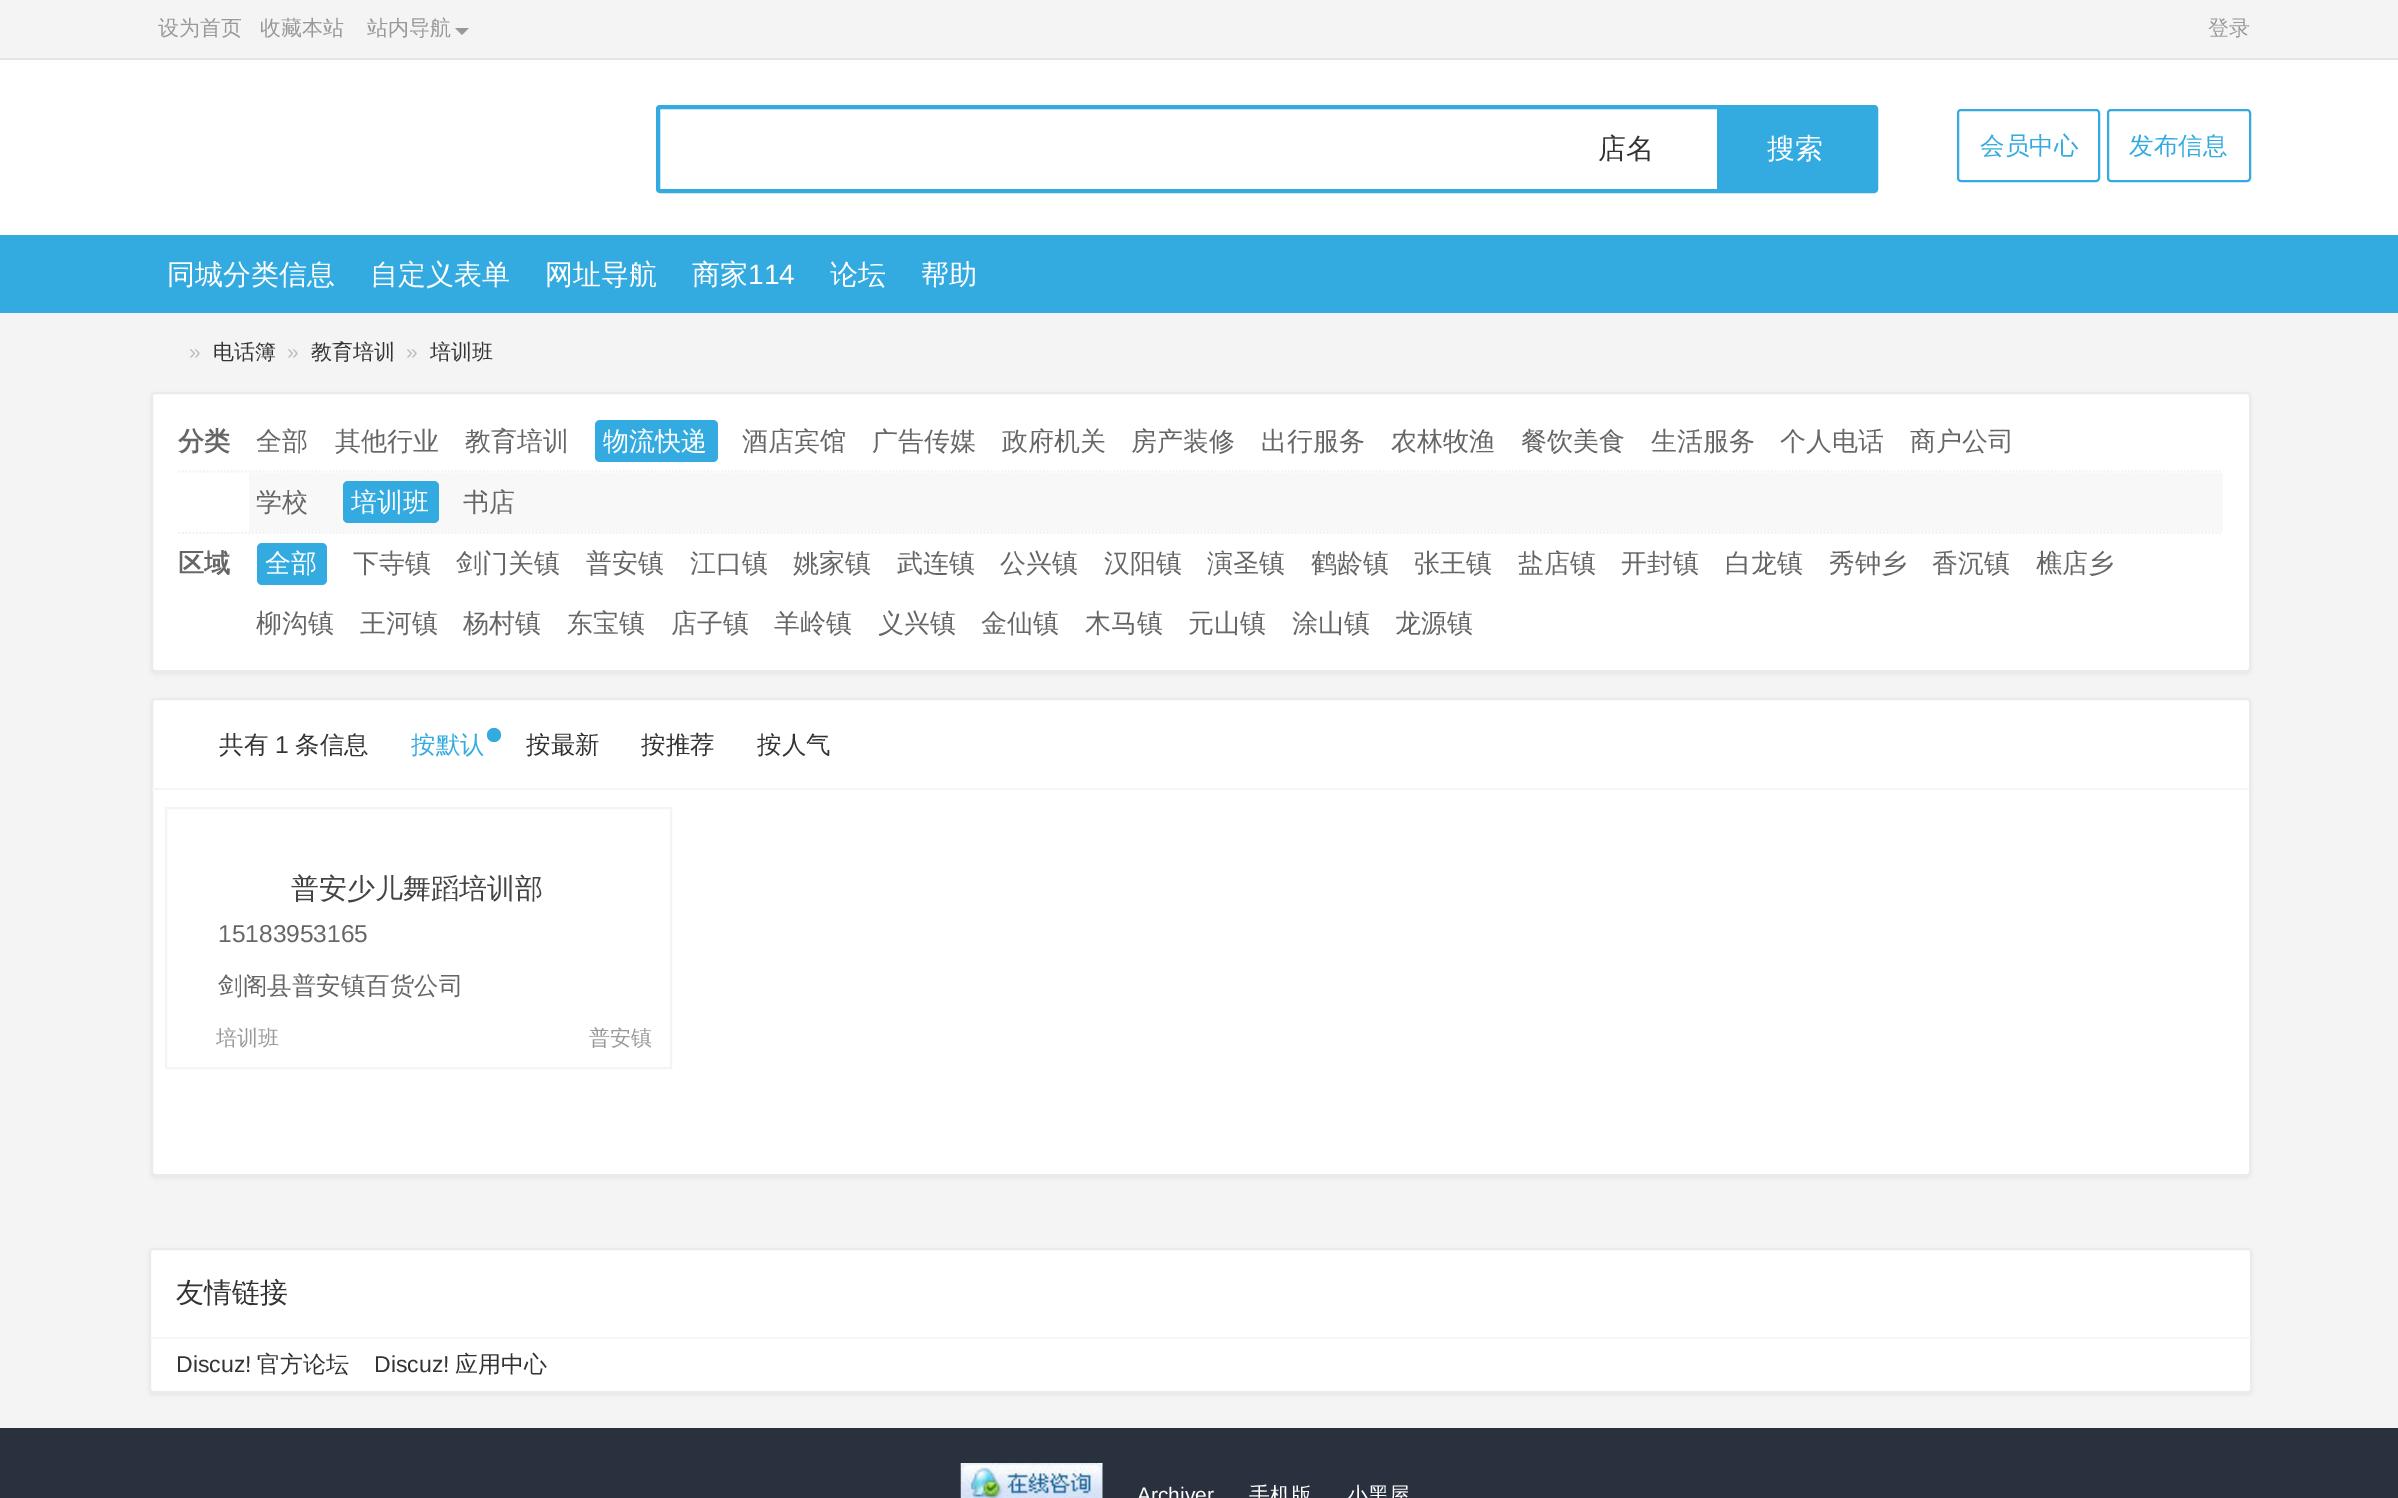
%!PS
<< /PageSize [2398 1498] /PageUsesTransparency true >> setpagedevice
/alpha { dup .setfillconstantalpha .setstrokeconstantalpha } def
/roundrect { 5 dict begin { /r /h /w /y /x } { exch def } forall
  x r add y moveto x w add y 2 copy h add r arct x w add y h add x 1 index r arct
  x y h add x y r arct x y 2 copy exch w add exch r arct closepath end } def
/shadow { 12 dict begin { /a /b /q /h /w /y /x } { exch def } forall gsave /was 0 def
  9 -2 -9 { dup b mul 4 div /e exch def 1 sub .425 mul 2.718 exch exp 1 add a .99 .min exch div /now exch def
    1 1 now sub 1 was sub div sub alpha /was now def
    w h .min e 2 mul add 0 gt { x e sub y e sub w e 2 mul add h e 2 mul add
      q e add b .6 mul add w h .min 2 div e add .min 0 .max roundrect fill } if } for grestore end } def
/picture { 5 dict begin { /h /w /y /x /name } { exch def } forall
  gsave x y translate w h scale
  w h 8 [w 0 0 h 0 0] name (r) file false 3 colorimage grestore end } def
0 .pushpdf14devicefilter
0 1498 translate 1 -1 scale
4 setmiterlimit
0.957 setgray
0 0 2398 1498 rectfill
0.898 setgray
0 58 2398 2 rectfill
/WenQuanYiZenHei-Medium [21 0 0 -21 0 0] selectfont
0.6 setgray
158 35 moveto (设为首页) show
260 35 moveto (收藏本站) show
367 35 moveto (站内导航) show
newpath 455 28 moveto 469 28 lineto 462 35 lineto closepath fill
2208 35 moveto (登录) show
1 setgray
0 60 2398 175 rectfill
0.2 0.671 0.878 setrgbcolor
4 setlinewidth
658 107 1218 84 2 roundrect stroke
/WenQuanYiZenHei-Medium [28 0 0 -28 0 0] selectfont
0.2 setgray
1598 158 moveto (店名) show
0.2 0.671 0.878 setrgbcolor
1717 109 157 80 rectfill
1 setgray
1767 158 moveto (搜索) show
0.2 0.671 0.878 setrgbcolor
2 setlinewidth
1958 110 141 71 3 roundrect stroke
/WenQuanYiZenHei-Medium [24.5 0 0 -24.5 0 0] selectfont
1980 154 moveto (会员中心) show
2108 110 142 71 3 roundrect stroke
2129 154 moveto (发布信息) show
0 235 2398 78 rectfill
/WenQuanYiZenHei-Medium [28 0 0 -28 0 0] selectfont
1 setgray
167 284 moveto (同城分类信息) show
370 284 moveto (自定义表单) show
545 284 moveto (网址导航) show
692 284 moveto (商家) show
/LiberationSans-Regular [28 0 0 -28 0 0] selectfont
748 284 moveto (114) show
/WenQuanYiZenHei-Medium [28 0 0 -28 0 0] selectfont
830 284 moveto (论坛) show
921 284 moveto (帮助) show
/LiberationSans-Regular [21 0 0 -21 0 0] selectfont
0.741 setgray
189 359 moveto (») show
/WenQuanYiZenHei-Medium [21 0 0 -21 0 0] selectfont
0.2 setgray
213 359 moveto (电话簿) show
/LiberationSans-Regular [21 0 0 -21 0 0] selectfont
0.741 setgray
287 359 moveto (») show
/WenQuanYiZenHei-Medium [21 0 0 -21 0 0] selectfont
0.2 setgray
311 359 moveto (教育培训) show
/LiberationSans-Regular [21 0 0 -21 0 0] selectfont
0.741 setgray
406 359 moveto (») show
/WenQuanYiZenHei-Medium [21 0 0 -21 0 0] selectfont
0.2 setgray
430 359 moveto (培训班) show
0 setgray
151 394 2100 280 4 2 0.05 shadow
1 setgray
152 393 2098 278 3 roundrect gsave fill grestore
0.922 setgray
stroke
0.941 setgray
1.8 setlinewidth
[1.75 1.75] 0 setdash
newpath 178.5 471.5 moveto 2222.5 471.5 lineto stroke
/WenQuanYiZenHei-Bold [26 0 0 -26 0 0] selectfont
0.4 setgray
178 450 moveto (分类) show
/WenQuanYiZenHei-Medium [26 0 0 -26 0 0] selectfont
256 450 moveto (全部) show
335 450 moveto (其他行业) show
465 450 moveto (教育培训) show
0.2 0.671 0.878 setrgbcolor
595 420 123 42 5 roundrect fill
1 setgray
603 450 moveto (物流快递) show
0.4 setgray
742 450 moveto (酒店宾馆) show
872 450 moveto (广告传媒) show
1002 450 moveto (政府机关) show
1131 450 moveto (房产装修) show
1261 450 moveto (出行服务) show
1391 450 moveto (农林牧渔) show
1521 450 moveto (餐饮美食) show
1651 450 moveto (生活服务) show
1780 450 moveto (个人电话) show
1910 450 moveto (商户公司) show
0.941 setgray
newpath 178.5 533 moveto 2222.5 533 lineto stroke
0.973 setgray
249 473 1974 59 rectfill
0.4 setgray
256 511 moveto (学校) show
0.2 0.671 0.878 setrgbcolor
343 481 96 42 5 roundrect fill
1 setgray
351 511 moveto (培训班) show
0.4 setgray
463 511 moveto (书店) show
/WenQuanYiZenHei-Bold [26 0 0 -26 0 0] selectfont
178 572 moveto (区域) show
0.2 0.671 0.878 setrgbcolor
257 543 70 42 5 roundrect fill
/WenQuanYiZenHei-Medium [26 0 0 -26 0 0] selectfont
1 setgray
265 572 moveto (全部) show
0.4 setgray
353 572 moveto (下寺镇) show
456 572 moveto (剑门关镇) show
586 572 moveto (普安镇) show
690 572 moveto (江口镇) show
793 572 moveto (姚家镇) show
897 572 moveto (武连镇) show
1000 572 moveto (公兴镇) show
1104 572 moveto (汉阳镇) show
1207 572 moveto (演圣镇) show
1311 572 moveto (鹤龄镇) show
1414 572 moveto (张王镇) show
1518 572 moveto (盐店镇) show
1621 572 moveto (开封镇) show
1725 572 moveto (白龙镇) show
1829 572 moveto (秀钟乡) show
1932 572 moveto (香沉镇) show
2036 572 moveto (樵店乡) show
256 632 moveto (柳沟镇) show
360 632 moveto (王河镇) show
463 632 moveto (杨村镇) show
567 632 moveto (东宝镇) show
671 632 moveto (店子镇) show
774 632 moveto (羊岭镇) show
878 632 moveto (义兴镇) show
981 632 moveto (金仙镇) show
1085 632 moveto (木马镇) show
1188 632 moveto (元山镇) show
1292 632 moveto (涂山镇) show
1395 632 moveto (龙源镇) show
0 setgray
151 700 2100 478 4 2 0.05 shadow
1 setgray
152 699 2098 476 3 roundrect gsave fill grestore
0.922 setgray
2 setlinewidth
[] 0 setdash
stroke
0.965 setgray
152 788 2097 2 rectfill
/WenQuanYiZenHei-Medium [24.5 0 0 -24.5 0 0] selectfont
0.2 setgray
219 753 moveto (共有) show
/LiberationSans-Regular [24.5 0 0 -24.5 0 0] selectfont
275 753 moveto (1) show
/WenQuanYiZenHei-Medium [24.5 0 0 -24.5 0 0] selectfont
295 753 moveto (条信息) show
0.2 0.671 0.878 setrgbcolor
411 753 moveto (按默认) show
newpath 494 735 7 0 360 arc closepath fill
0.2 setgray
526 753 moveto (按最新) show
641 753 moveto (按推荐) show
757 753 moveto (按人气) show
0.957 setgray
166 808 505 260 rectstroke
/WenQuanYiZenHei-Medium [28 0 0 -28 0 0] selectfont
0.267 setgray
291 898 moveto (普安少儿舞蹈培训部) show
/LiberationSans-Regular [24.5 0 0 -24.5 0 0] selectfont
0.4 setgray
218 942 moveto (15183953165) show
/WenQuanYiZenHei-Medium [24.5 0 0 -24.5 0 0] selectfont
218 994 moveto (剑阁县普安镇百货公司) show
/WenQuanYiZenHei-Medium [21 0 0 -21 0 0] selectfont
0.6 setgray
216 1045 moveto (培训班) show
589 1045 moveto (普安镇) show
0 setgray
149 1250 2103 145 4 2 0.05 shadow
1 setgray
150 1249 2101 143 3 roundrect gsave fill grestore
0.922 setgray
stroke
0.965 setgray
151 1337 2100 2 rectfill
/WenQuanYiZenHei-Medium [28 0 0 -28 0 0] selectfont
0.2 setgray
176 1302 moveto (友情链接) show
/LiberationSans-Regular [23 0 0 -23 0 0] selectfont
176 1372 moveto (Discuz!) show
/WenQuanYiZenHei-Medium [23 0 0 -23 0 0] selectfont
257 1372 moveto (官方论坛) show
/LiberationSans-Regular [23 0 0 -23 0 0] selectfont
374 1372 moveto (Discuz!) show
/WenQuanYiZenHei-Medium [23 0 0 -23 0 0] selectfont
455 1372 moveto (应用中心) show
0.157 0.192 0.239 setrgbcolor
0 1428 2398 70 rectfill
(img1.rgb) 960 1463 143 35 picture
/LiberationSans-Regular [21 0 0 -21 0 0] selectfont
1 setgray
1137 1502 moveto (Archiver) show
/WenQuanYiZenHei-Medium [21 0 0 -21 0 0] selectfont
1249 1502 moveto (手机版) show
1347 1502 moveto (小黑屋) show
.poppdf14devicefilter showpage
